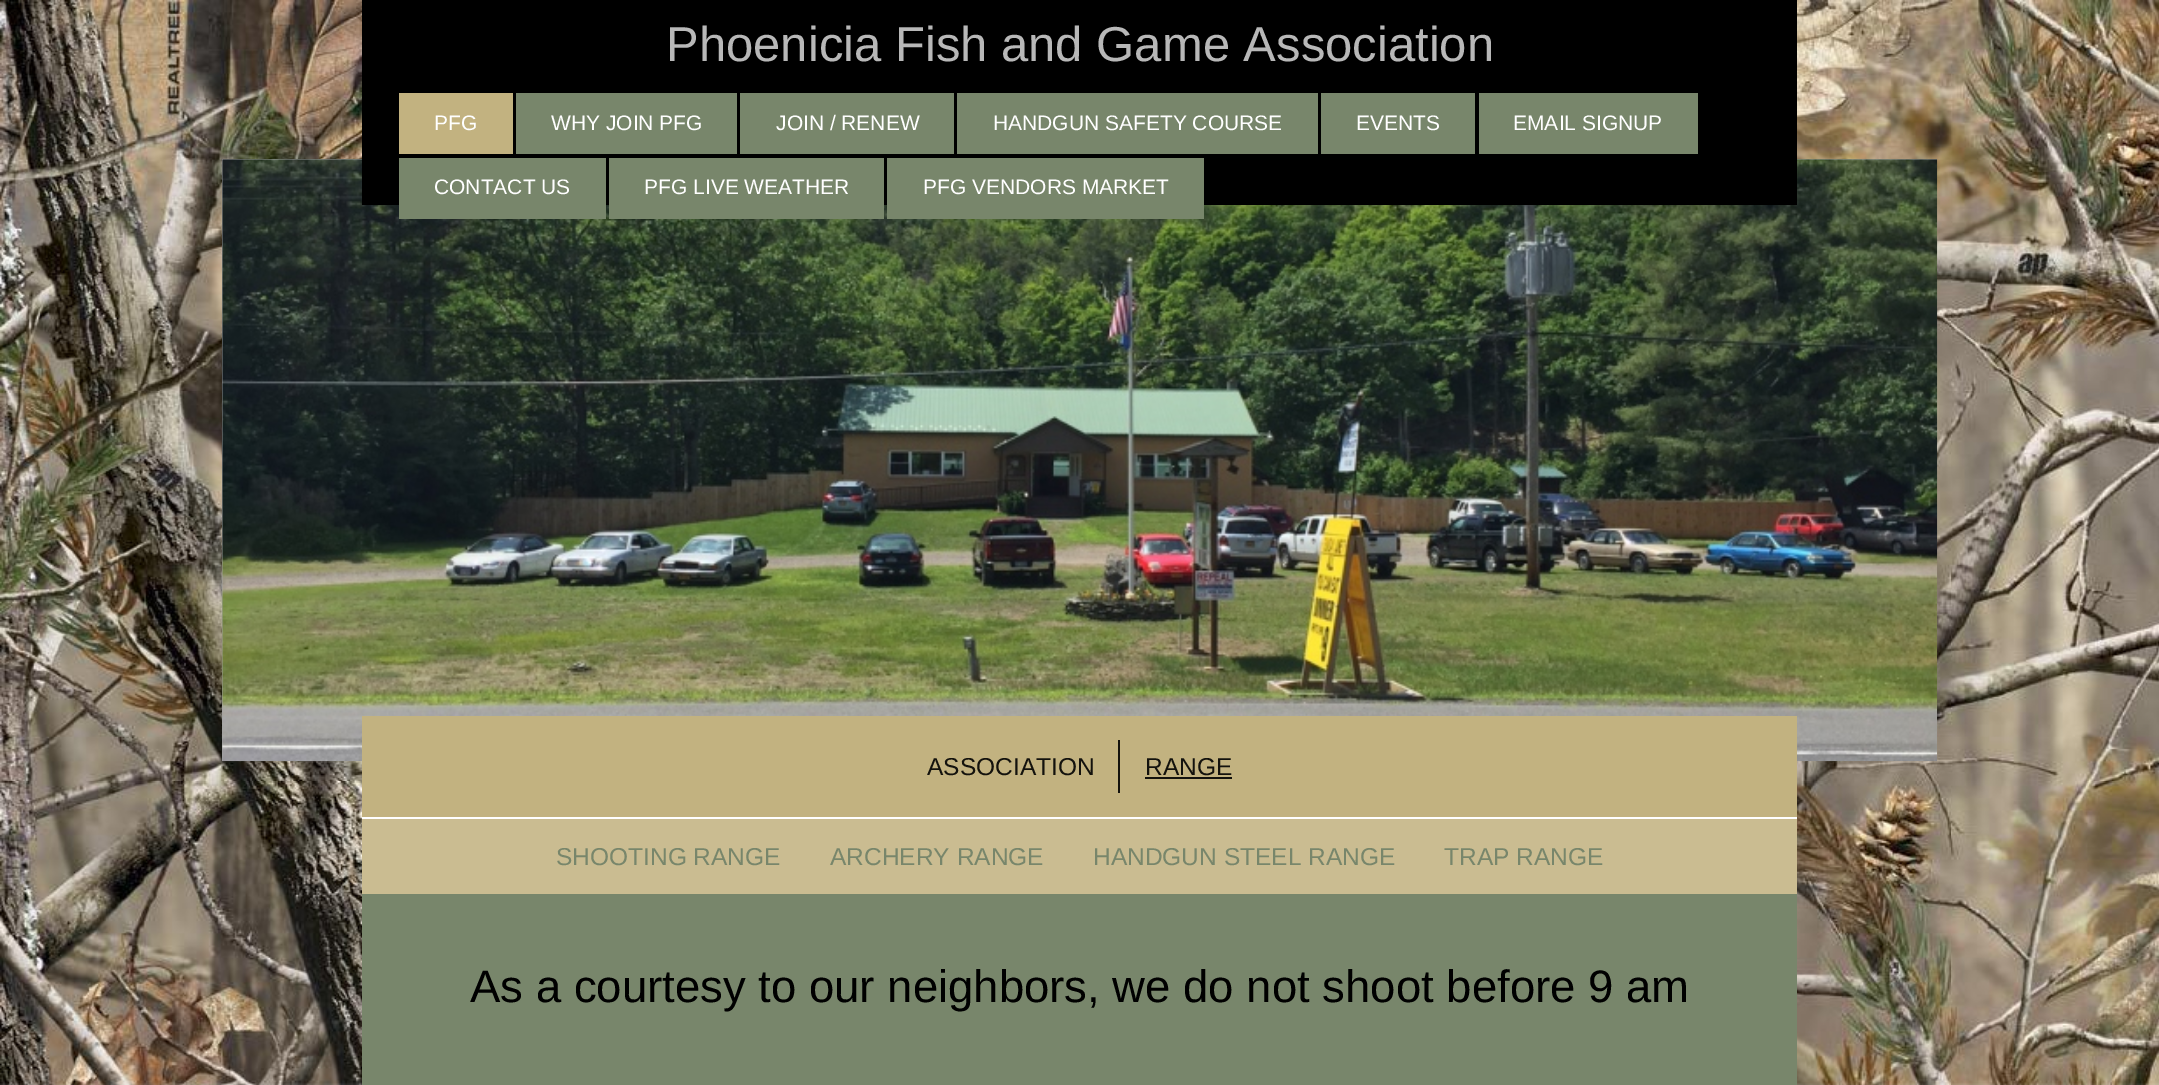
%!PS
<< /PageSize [2159 1085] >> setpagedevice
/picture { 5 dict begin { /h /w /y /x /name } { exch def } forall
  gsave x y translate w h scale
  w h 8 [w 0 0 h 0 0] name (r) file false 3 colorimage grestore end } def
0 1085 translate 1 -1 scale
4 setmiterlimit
1 setgray
0 0 2159 1085 rectfill
(img1.rgb) 0 0 2159 1085 picture
0.627 setgray
222 159 1715 602 rectfill
(img2.rgb) 222 159 1716 603 picture
0 setgray
362 0 1435 205 rectfill
/LiberationSans-Regular [49 0 0 -49 0 0] selectfont
0.722 setgray
666 61 moveto (Phoenicia Fish and Game Association) show
0.761 0.698 0.502 setrgbcolor
399 93 114 61 rectfill
/LiberationSans-Regular [21 0 0 -21 0 0] selectfont
1 setgray
434 130 moveto (PFG) show
0.471 0.525 0.42 setrgbcolor
516 93 221 61 rectfill
1 setgray
551 130 moveto (WHY JOIN PFG) show
0.471 0.525 0.42 setrgbcolor
740 93 214 61 rectfill
1 setgray
776 130 moveto (JOIN / RENEW) show
0.471 0.525 0.42 setrgbcolor
957 93 361 61 rectfill
1 setgray
993 130 moveto (HANDGUN SAFETY COURSE) show
0.471 0.525 0.42 setrgbcolor
1321 93 154 61 rectfill
1 setgray
1356 130 moveto (EVENTS) show
0.471 0.525 0.42 setrgbcolor
1479 93 219 61 rectfill
1 setgray
1513 130 moveto (EMAIL SIGNUP) show
0.471 0.525 0.42 setrgbcolor
399 158 207 61 rectfill
1 setgray
434 194 moveto (CONTACT US) show
0.471 0.525 0.42 setrgbcolor
609 158 275 61 rectfill
1 setgray
644 194 moveto (PFG LIVE WEATHER) show
0.471 0.525 0.42 setrgbcolor
887 158 317 61 rectfill
1 setgray
923 194 moveto (PFG VENDORS MARKET) show
0.761 0.698 0.502 setrgbcolor
362 716 1435 101 rectfill
1 setgray
362 817 1435 2 rectfill
/LiberationSans-Regular [24.5 0 0 -24.5 0 0] selectfont
0.075 0.071 0.051 setrgbcolor
927 775 moveto (ASSOCIATION) show
1118 740 2 53 rectfill
1145 775 moveto (RANGE) show
1145 777 87 2 rectfill
0.792 0.737 0.569 setrgbcolor
362 819 1435 75 rectfill
0.471 0.525 0.42 setrgbcolor
556 865 moveto (SHOOTING RANGE) show
830 865 moveto (ARCHERY RANGE) show
1093 865 moveto (HANDGUN STEEL RANGE) show
1444 865 moveto (TRAP RANGE) show
362 894 1435 191 rectfill
/LiberationSans-Regular [45.5 0 0 -45.5 0 0] selectfont
0 setgray
470 1002 moveto (As a courtesy to our neighbors, we do not shoot before 9 am) show
showpage
